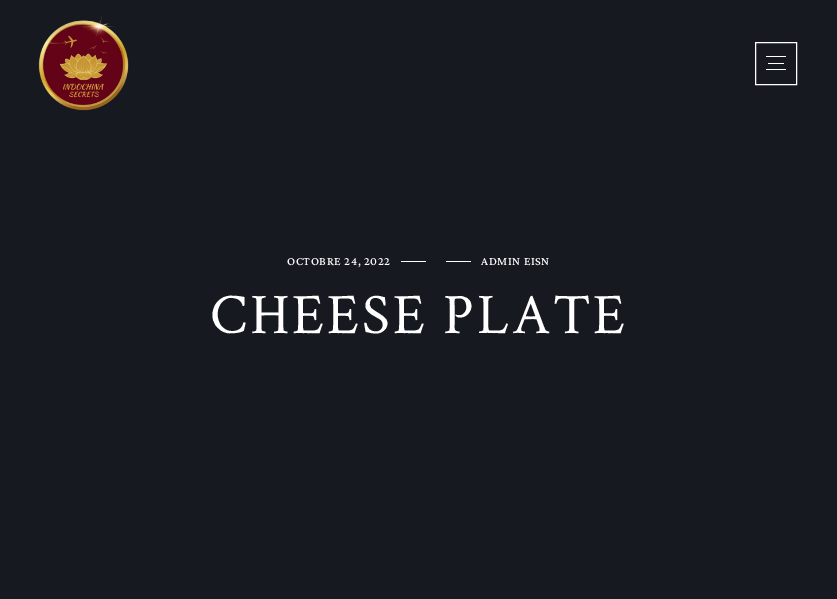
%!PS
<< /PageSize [837 599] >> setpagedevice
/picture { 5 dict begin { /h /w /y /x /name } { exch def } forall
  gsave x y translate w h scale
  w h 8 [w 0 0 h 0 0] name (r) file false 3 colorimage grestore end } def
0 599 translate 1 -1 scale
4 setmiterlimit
0.086 0.102 0.125 setrgbcolor
0 0 837 599 rectfill
(img1.rgb) 38 16 91 95 picture
1 setgray
755.5 42.5 41 42 rectstroke
766 56 20 1 rectfill
768 63 16 1 rectfill
766 69 20 1 rectfill
/CrimsonPro-Medium [12 0 0 -12 0 0] selectfont
287 265 moveto 0.6 0 (OCTOBRE 24, 2022) ashow
401 261 25 1 rectfill
446 261 25 1 rectfill
481 265 moveto 0.6 0 (ADMIN EISN) ashow
/CrimsonText-Regular [57.5 0 0 -57.5 0 0] selectfont
210 333 moveto 2.9 0 (CHEESE PLATE) ashow
showpage
